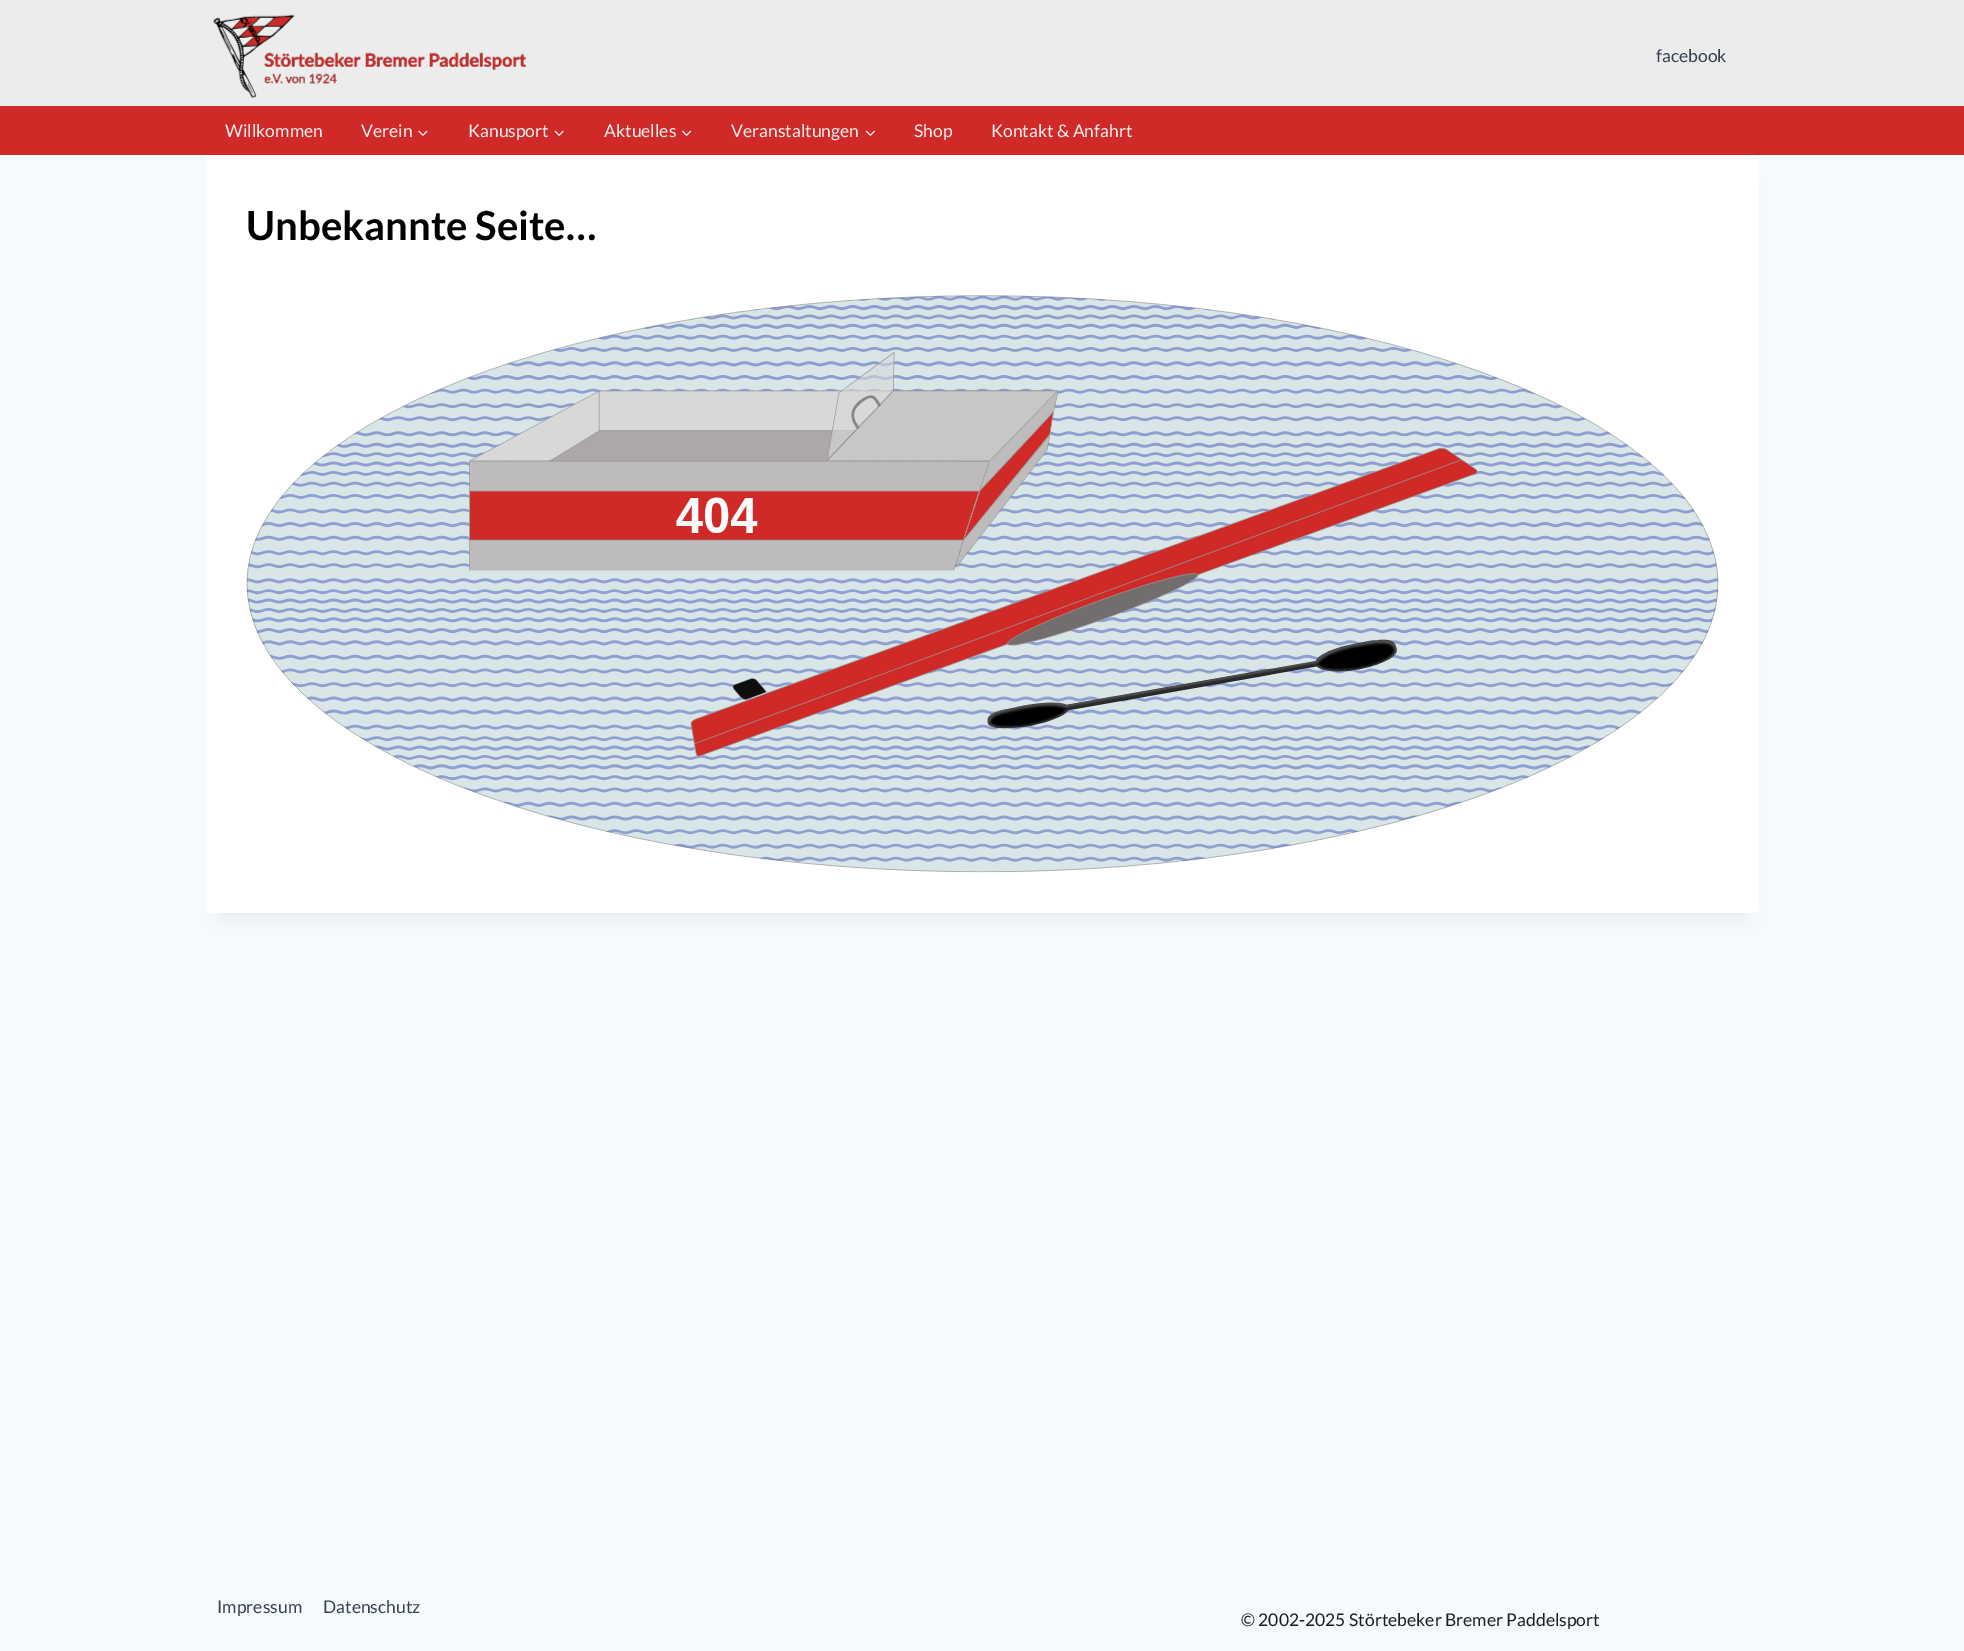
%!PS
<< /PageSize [1964 1651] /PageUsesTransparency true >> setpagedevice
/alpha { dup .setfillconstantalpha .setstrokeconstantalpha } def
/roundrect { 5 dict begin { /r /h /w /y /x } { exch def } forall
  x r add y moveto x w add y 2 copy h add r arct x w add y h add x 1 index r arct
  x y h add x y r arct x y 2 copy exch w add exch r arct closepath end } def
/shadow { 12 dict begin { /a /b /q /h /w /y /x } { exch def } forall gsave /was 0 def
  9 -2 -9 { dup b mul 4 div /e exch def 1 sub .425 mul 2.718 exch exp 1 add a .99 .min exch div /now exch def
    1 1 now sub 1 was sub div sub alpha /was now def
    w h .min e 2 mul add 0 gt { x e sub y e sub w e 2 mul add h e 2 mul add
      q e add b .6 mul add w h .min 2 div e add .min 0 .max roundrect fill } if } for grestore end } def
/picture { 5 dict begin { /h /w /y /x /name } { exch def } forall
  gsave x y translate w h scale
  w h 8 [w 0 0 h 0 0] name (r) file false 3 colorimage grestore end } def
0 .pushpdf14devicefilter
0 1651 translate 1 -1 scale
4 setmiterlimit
0.969 0.98 0.988 setrgbcolor
0 0 1964 1651 rectfill
0.925 setgray
0 0 1964 106 rectfill
(img1.rgb) 213 14 314 84 picture
/Lato-Regular [17.5 0 0 -17.5 0 0] selectfont
0.204 0.255 0.322 setrgbcolor
1656 62 moveto (facebook) show
0.812 0.165 0.153 setrgbcolor
0 106 1964 49 rectfill
0.941 setgray
225 137 moveto (Willkommen) show
361 137 moveto (Verein) show
(img2.rgb) 418 130 10 6 picture
468 137 moveto (Kanusport) show
(img3.rgb) 554 130 10 6 picture
604 137 moveto (Aktuelles) show
(img4.rgb) 682 130 10 6 picture
731 137 moveto (Veranstaltungen) show
(img5.rgb) 865 130 10 6 picture
914 137 moveto (Shop) show
991 137 moveto (Kontakt & Anfahrt) show
0 setgray
219 186 1527 733 0 9.5 0.05 shadow
1 setgray
206 155 1553 758 5 roundrect fill
/Lato-Bold [40 0 0 -40 0 0] selectfont
0.004 setgray
246 240 moveto (Unbekannte Seite…) show
(img6.rgb) 246 295 1473 578 picture
/Lato-Regular [17.5 0 0 -17.5 0 0] selectfont
0.204 0.255 0.322 setrgbcolor
217 1613 moveto (Impressum) show
323 1613 moveto (Datenschutz) show
0.114 setgray
1241 1626 moveto (© 2002-2025 Störtebeker Bremer Paddelsport) show
.poppdf14devicefilter showpage
